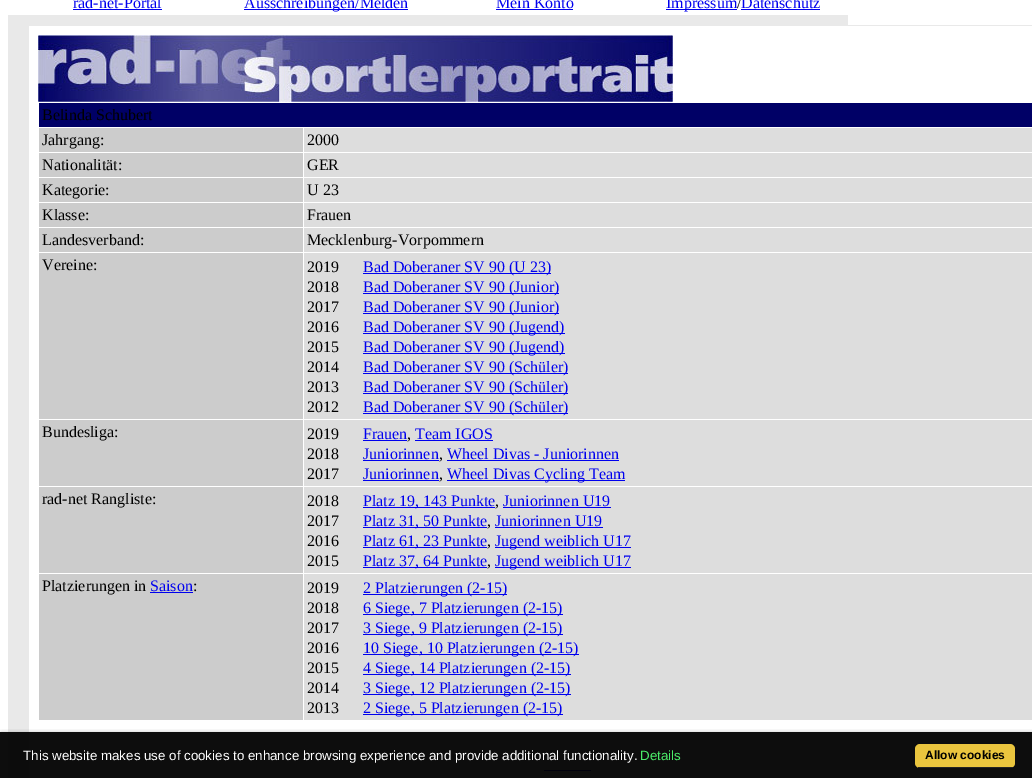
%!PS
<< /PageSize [1032 778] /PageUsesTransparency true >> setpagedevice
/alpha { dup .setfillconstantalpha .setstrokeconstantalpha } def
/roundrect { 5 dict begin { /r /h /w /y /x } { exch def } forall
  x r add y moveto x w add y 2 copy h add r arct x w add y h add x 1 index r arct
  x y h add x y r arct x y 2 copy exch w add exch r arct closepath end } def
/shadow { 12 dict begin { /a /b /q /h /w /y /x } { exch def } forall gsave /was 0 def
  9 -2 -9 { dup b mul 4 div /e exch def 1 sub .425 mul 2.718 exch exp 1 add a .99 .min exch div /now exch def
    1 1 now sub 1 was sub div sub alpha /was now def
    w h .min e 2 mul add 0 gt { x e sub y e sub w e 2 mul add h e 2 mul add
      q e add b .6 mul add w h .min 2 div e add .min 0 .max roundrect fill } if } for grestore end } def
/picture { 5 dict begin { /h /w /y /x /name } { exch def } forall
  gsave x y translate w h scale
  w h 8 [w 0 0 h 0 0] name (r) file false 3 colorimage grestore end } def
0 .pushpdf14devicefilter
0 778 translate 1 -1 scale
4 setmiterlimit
1 setgray
0 0 1032 778 rectfill
0.051 setgray
0 732 8 46 rectfill
/LiberationSerif-Regular [16 0 0 -16 0 0] selectfont
0 0 0.933 setrgbcolor
73 8 moveto (rad-net-Portal) show
73 9 89 1 rectfill
244 9 164 1 rectfill
244 8 moveto (Ausschreibungen/Melden) show
496 8 moveto (Mein Konto) show
496 9 77 1 rectfill
666 9 71 1 rectfill
666 8 moveto (Impressum) show
0 setgray
737 8 moveto (/) show
0 0 0.933 setrgbcolor
741 8 moveto (Datenschutz) show
741 9 79 1 rectfill
0.914 setgray
8 15 840 10 rectfill
8 25 1024 707 rectfill
0.047 setgray
8 732 21 46 rectfill
1 setgray
29 26 1003 706 rectfill
0.051 setgray
29 732 1003 46 rectfill
(img1.rgb) 38 35 635 67 picture
0 0 0.4 setrgbcolor
39 103 993 24 rectfill
0 setgray
42 120 moveto (Belinda Schubert) show
0.8 setgray
39 128 264 24 rectfill
0 setgray
42 145 moveto (Jahrgang:) show
0.867 setgray
304 128 728 24 rectfill
0 setgray
307 145 moveto (2000) show
0.8 setgray
39 153 264 24 rectfill
0 setgray
42 170 moveto (Nationalität:) show
0.867 setgray
304 153 728 24 rectfill
0 setgray
307 170 moveto (GER) show
0.8 setgray
39 178 264 24 rectfill
0 setgray
42 195 moveto (Kategorie:) show
0.867 setgray
304 178 728 24 rectfill
0 setgray
307 195 moveto (U 23) show
0.8 setgray
39 203 264 24 rectfill
0 setgray
42 220 moveto (Klasse:) show
0.867 setgray
304 203 728 24 rectfill
0 setgray
307 220 moveto (Frauen) show
0.8 setgray
39 228 264 24 rectfill
0 setgray
42 245 moveto (Landesverband:) show
0.867 setgray
304 228 728 24 rectfill
0 setgray
307 245 moveto (Mecklenburg-Vorpommern) show
0.8 setgray
39 253 264 166 rectfill
0 setgray
42 270 moveto (Vereine:) show
0.867 setgray
304 253 728 166 rectfill
0 setgray
307 272 moveto (2019) show
0 0 0.933 setrgbcolor
363 273 188 1 rectfill
363 272 moveto (Bad Doberaner SV 90 \(U 23\)) show
0 setgray
307 292 moveto (2018) show
0 0 0.933 setrgbcolor
363 293 196 1 rectfill
363 292 moveto (Bad Doberaner SV 90 \(Junior\)) show
0 setgray
307 312 moveto (2017) show
0 0 0.933 setrgbcolor
363 313 196 1 rectfill
363 312 moveto (Bad Doberaner SV 90 \(Junior\)) show
0 setgray
307 332 moveto (2016) show
0 0 0.933 setrgbcolor
363 333 202 1 rectfill
363 332 moveto (Bad Doberaner SV 90 \(Jugend\)) show
0 setgray
307 352 moveto (2015) show
0 0 0.933 setrgbcolor
363 353 202 1 rectfill
363 352 moveto (Bad Doberaner SV 90 \(Jugend\)) show
0 setgray
307 372 moveto (2014) show
0 0 0.933 setrgbcolor
363 373 205 1 rectfill
363 372 moveto (Bad Doberaner SV 90 \(Schüler\)) show
0 setgray
307 392 moveto (2013) show
0 0 0.933 setrgbcolor
363 393 205 1 rectfill
363 392 moveto (Bad Doberaner SV 90 \(Schüler\)) show
0 setgray
307 412 moveto (2012) show
0 0 0.933 setrgbcolor
363 413 205 1 rectfill
363 412 moveto (Bad Doberaner SV 90 \(Schüler\)) show
0.8 setgray
39 420 264 66 rectfill
0 setgray
42 437 moveto (Bundesliga:) show
0.867 setgray
304 420 728 66 rectfill
0 setgray
307 439 moveto (2019) show
0 0 0.933 setrgbcolor
363 439 moveto (Frauen) show
0 setgray
407 439 moveto (,) show
0 0 0.933 setrgbcolor
363 440 44 1 rectfill
415 440 78 1 rectfill
415 439 moveto (Team IGOS) show
0 setgray
307 459 moveto (2018) show
0 0 0.933 setrgbcolor
363 459 moveto (Juniorinnen) show
0 setgray
439 459 moveto (,) show
0 0 0.933 setrgbcolor
363 460 76 1 rectfill
447 460 172 1 rectfill
447 459 moveto (Wheel Divas - Juniorinnen) show
0 setgray
307 479 moveto (2017) show
0 0 0.933 setrgbcolor
363 479 moveto (Juniorinnen) show
0 setgray
439 479 moveto (,) show
0 0 0.933 setrgbcolor
363 480 76 1 rectfill
447 480 178 1 rectfill
447 479 moveto (Wheel Divas Cycling Team) show
0.8 setgray
39 487 264 86 rectfill
0 setgray
42 504 moveto (rad-net Rangliste:) show
0.867 setgray
304 487 728 86 rectfill
0 setgray
307 506 moveto (2018) show
0 0 0.933 setrgbcolor
363 507 132 1 rectfill
363 506 moveto (Platz 19, 143 Punkte) show
0 setgray
495 506 moveto (,) show
0 0 0.933 setrgbcolor
503 507 108 1 rectfill
503 506 moveto (Juniorinnen U19) show
0 setgray
307 526 moveto (2017) show
0 0 0.933 setrgbcolor
363 527 124 1 rectfill
363 526 moveto (Platz 31, 50 Punkte) show
0 setgray
487 526 moveto (,) show
0 0 0.933 setrgbcolor
495 527 108 1 rectfill
495 526 moveto (Juniorinnen U19) show
0 setgray
307 546 moveto (2016) show
0 0 0.933 setrgbcolor
363 547 124 1 rectfill
363 546 moveto (Platz 61, 23 Punkte) show
0 setgray
487 546 moveto (,) show
0 0 0.933 setrgbcolor
495 547 136 1 rectfill
495 546 moveto (Jugend weiblich U17) show
0 setgray
307 566 moveto (2015) show
0 0 0.933 setrgbcolor
363 567 124 1 rectfill
363 566 moveto (Platz 37, 64 Punkte) show
0 setgray
487 566 moveto (,) show
0 0 0.933 setrgbcolor
495 567 136 1 rectfill
495 566 moveto (Jugend weiblich U17) show
0.8 setgray
39 574 264 146 rectfill
0 setgray
42 591 moveto (Platzierungen in) show
0 0 0.933 setrgbcolor
150 591 moveto (Saison) show
0 setgray
193 591 moveto (:) show
0 0 0.933 setrgbcolor
150 592 43 1 rectfill
0.867 setgray
304 574 728 146 rectfill
0 setgray
307 593 moveto (2019) show
0 0 0.933 setrgbcolor
363 594 144 1 rectfill
363 593 moveto (2 Platzierungen \(2-15\)) show
0 setgray
307 613 moveto (2018) show
0 0 0.933 setrgbcolor
363 614 200 1 rectfill
363 613 moveto (6 Siege, 7 Platzierungen \(2-15\)) show
0 setgray
307 633 moveto (2017) show
0 0 0.933 setrgbcolor
363 634 200 1 rectfill
363 633 moveto (3 Siege, 9 Platzierungen \(2-15\)) show
0 setgray
307 653 moveto (2016) show
0 0 0.933 setrgbcolor
363 654 216 1 rectfill
363 653 moveto (10 Siege, 10 Platzierungen \(2-15\)) show
0 setgray
307 673 moveto (2015) show
0 0 0.933 setrgbcolor
363 674 208 1 rectfill
363 673 moveto (4 Siege, 14 Platzierungen \(2-15\)) show
0 setgray
307 693 moveto (2014) show
0 0 0.933 setrgbcolor
363 694 208 1 rectfill
363 693 moveto (3 Siege, 12 Platzierungen \(2-15\)) show
0 setgray
307 713 moveto (2013) show
0 0 0.933 setrgbcolor
363 714 200 1 rectfill
363 713 moveto (2 Siege, 5 Platzierungen \(2-15\)) show
0 0 0.047 setrgbcolor
544 770 47 1 rectfill
gsave
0 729 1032 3 rectclip
0 setgray
2 734 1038 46 0 2.5 0.6 shadow
grestore
/LiberationSans-Regular [13.35 0 0 -13.35 0 0] selectfont
1 setgray
23 760 moveto (This website makes use of cookies to enhance browsing experience and provide additional functionality.) show
0.294 0.925 0.412 setrgbcolor
640 760 moveto (Details) show
0.918 0.773 0.243 setrgbcolor
915 744 100 24 5 roundrect fill
0.133 setgray
918 767 95 1 rectfill
/LiberationSans-Bold [12 0 0 -12 0 0] selectfont
0 setgray
925 759 moveto (Allow cookies) show
.poppdf14devicefilter showpage
